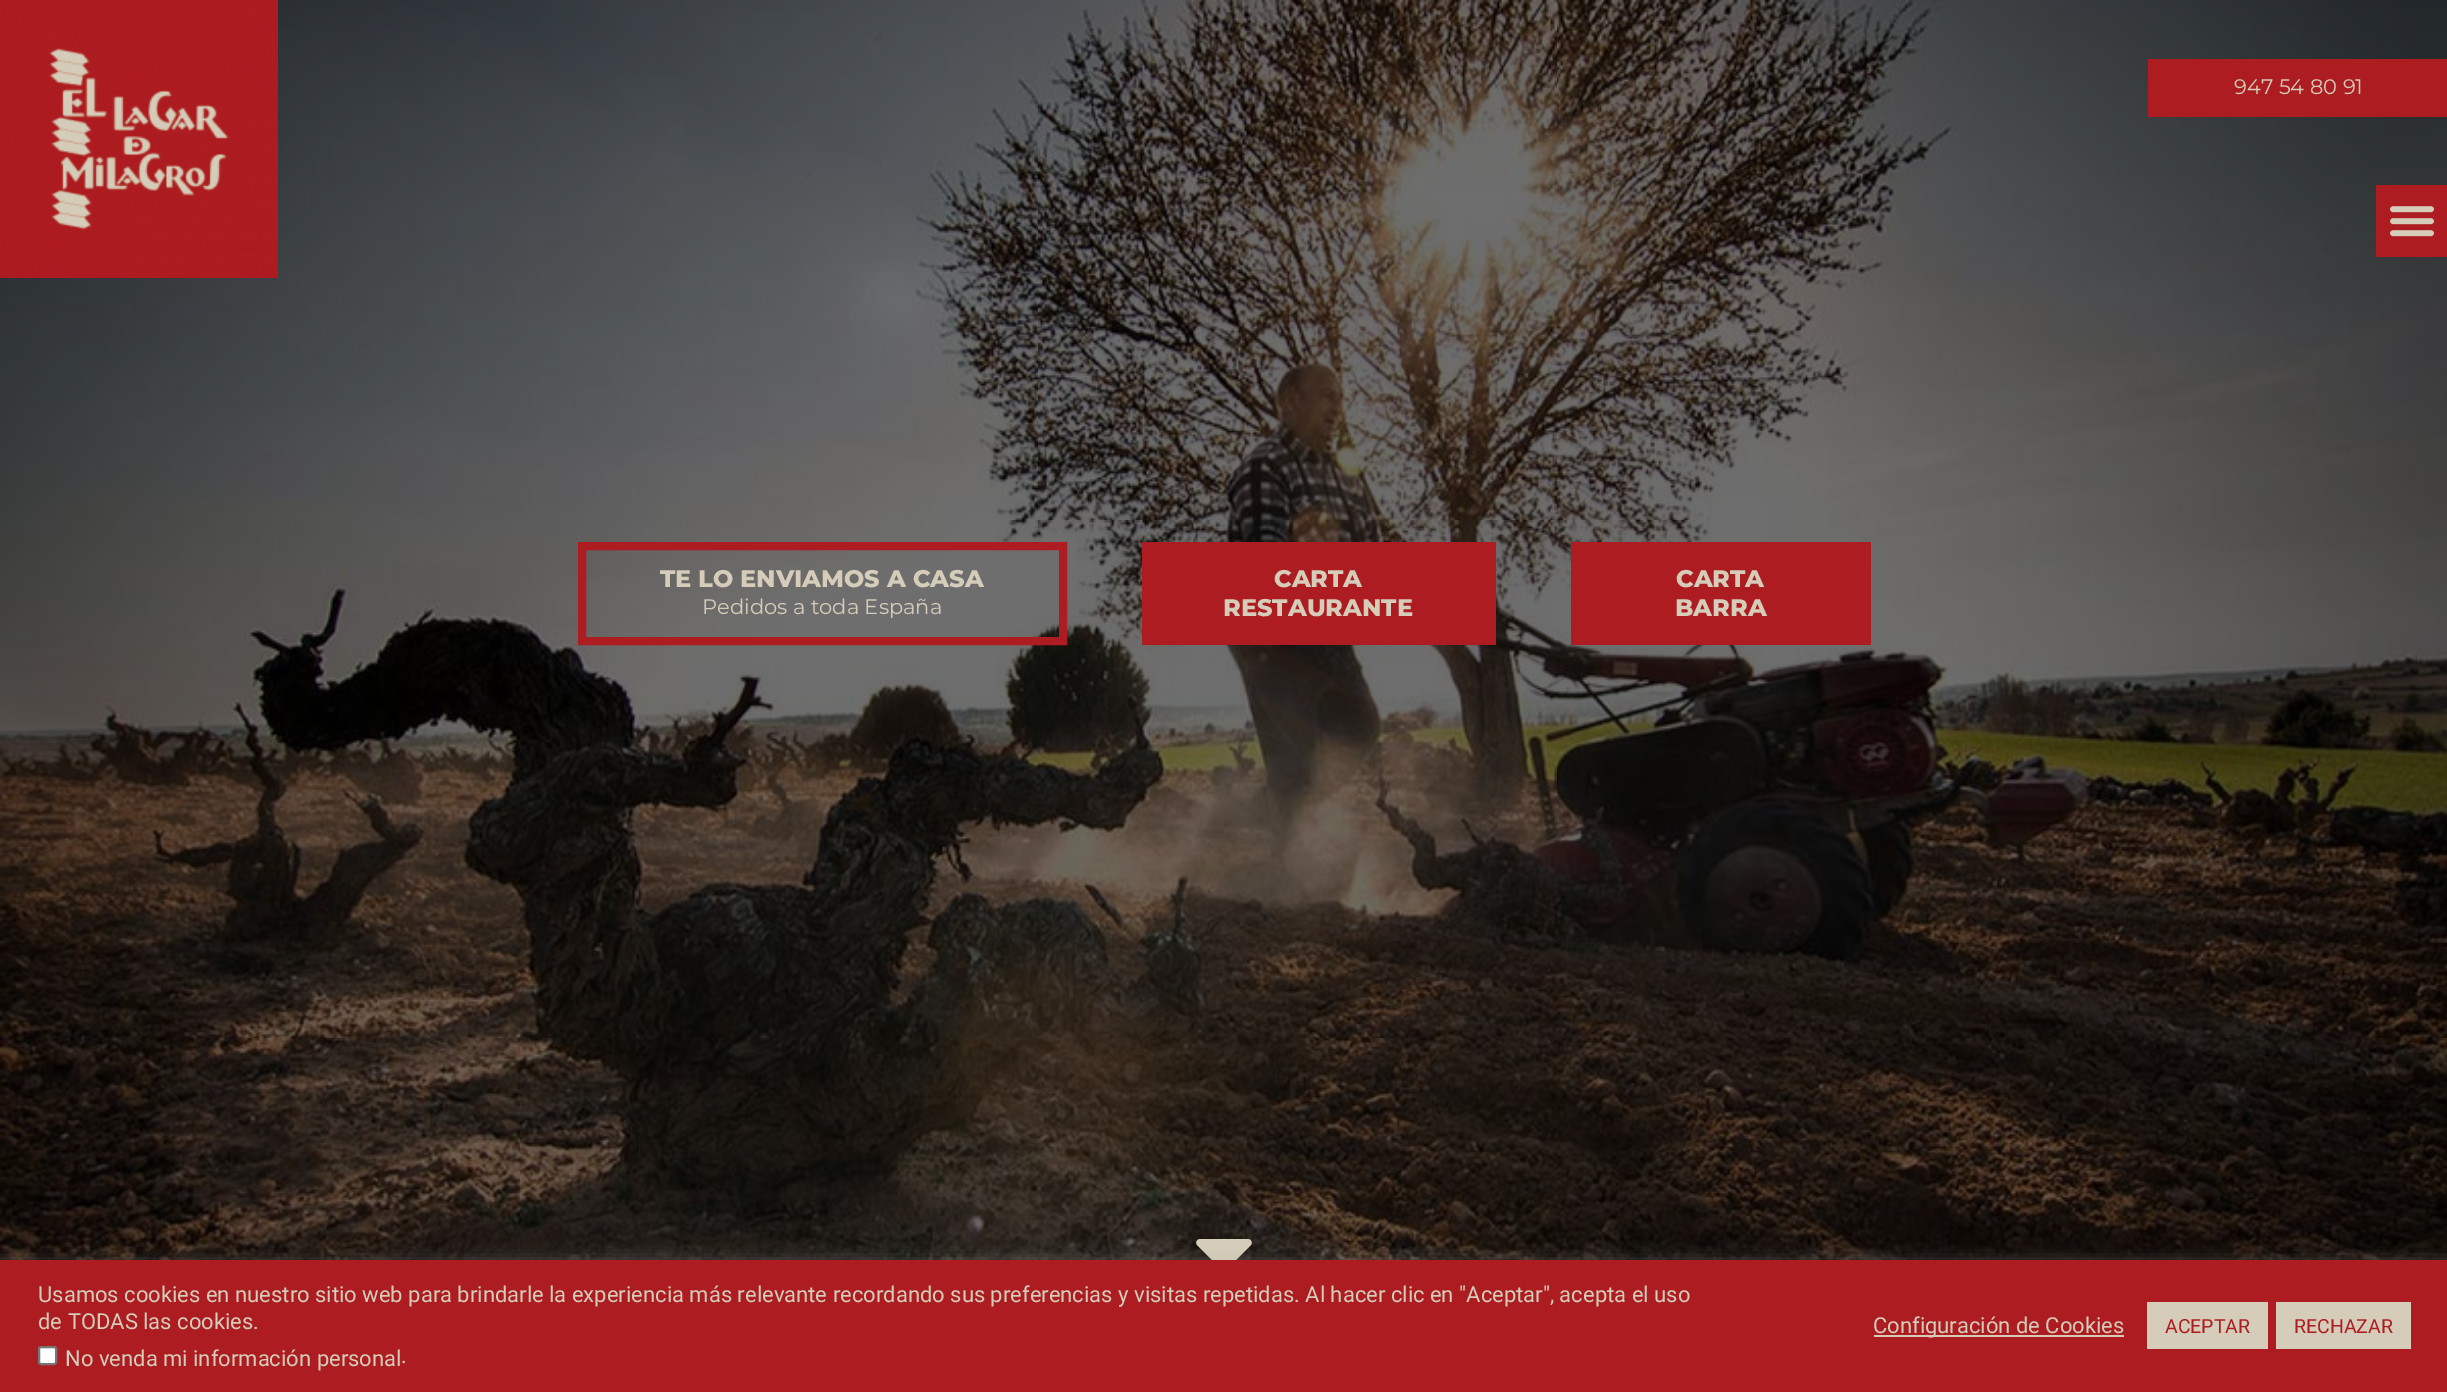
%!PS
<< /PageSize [2447 1392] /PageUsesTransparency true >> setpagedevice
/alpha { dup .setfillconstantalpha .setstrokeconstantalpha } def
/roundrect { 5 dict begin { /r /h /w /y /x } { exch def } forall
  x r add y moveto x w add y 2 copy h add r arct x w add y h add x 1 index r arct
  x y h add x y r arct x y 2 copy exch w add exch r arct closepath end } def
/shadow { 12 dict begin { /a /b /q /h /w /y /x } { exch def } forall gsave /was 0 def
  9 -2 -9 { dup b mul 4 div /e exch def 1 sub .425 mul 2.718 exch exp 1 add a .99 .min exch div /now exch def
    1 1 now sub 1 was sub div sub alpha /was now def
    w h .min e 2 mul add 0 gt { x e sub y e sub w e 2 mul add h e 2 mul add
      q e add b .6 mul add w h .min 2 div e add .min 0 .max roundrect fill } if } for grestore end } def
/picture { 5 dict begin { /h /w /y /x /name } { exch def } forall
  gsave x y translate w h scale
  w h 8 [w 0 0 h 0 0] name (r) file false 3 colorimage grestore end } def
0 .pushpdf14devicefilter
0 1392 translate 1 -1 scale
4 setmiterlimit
1 setgray
0 0 2447 1392 rectfill
(img3.rgb) 0 0 2447 1260 picture
(img1.rgb) 0 0 278 278 picture
0.678 0.11 0.129 setrgbcolor
2148 59 299 58 rectfill
/Montserrat-Regular [21 0 0 -21 0 0] selectfont
0.835 0.804 0.729 setrgbcolor
2234 94 moveto (947 54 80 91) show
0.678 0.11 0.129 setrgbcolor
2376 185 71 72 rectfill
(img2.rgb) 2390 206 44 31 picture
8 setlinewidth
582 546 481 95 rectstroke
/Montserrat-ExtraBold [24 0 0 -24 0 0] selectfont
0.835 0.804 0.729 setrgbcolor
660 587 moveto (TE LO ENVIAMOS A CASA) show
/Montserrat-Regular [21 0 0 -21 0 0] selectfont
702 614 moveto (Pedidos a toda España) show
0.678 0.11 0.129 setrgbcolor
1142 542 354 103 rectfill
/Montserrat-ExtraBold [24 0 0 -24 0 0] selectfont
0.835 0.804 0.729 setrgbcolor
1274 587 moveto (CARTA) show
1223 616 moveto (RESTAURANTE) show
0.678 0.11 0.129 setrgbcolor
1571 542 300 103 rectfill
0.835 0.804 0.729 setrgbcolor
1676 587 moveto (CARTA) show
1675 616 moveto (BARRA) show
(img4.rgb) 1196 1239 56 21 picture
0.675 0.671 0.671 setrgbcolor
0 1259 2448 132 0 7.5 0.3 shadow
0.678 0.11 0.129 setrgbcolor
0 1260 2447 132 rectfill
/Roboto-Regular [22 0 0 -22 0 0] selectfont
0.835 0.804 0.729 setrgbcolor
38 1302 moveto (Usamos cookies en nuestro sitio web para brindarle la experiencia más relevante recordando sus preferencias y visitas repetidas. Al hacer clic en "Aceptar", acepta el uso) show
38 1329 moveto (de TODAS las cookies.) show
1 setgray
39 1347 17 17 2 roundrect gsave fill grestore
0.463 setgray
2 setlinewidth
stroke
0.835 0.804 0.729 setrgbcolor
65 1366 moveto (No venda mi información personal) show
401 1363 moveto (.) show
1874 1335 250 2 rectfill
1873 1333 moveto (Configuración de Cookies) show
2147 1302 121 47 rectfill
/Roboto-Regular [19.5 0 0 -19.5 0 0] selectfont
0.678 0.11 0.129 setrgbcolor
2165 1333 moveto (ACEPTAR) show
0.835 0.804 0.729 setrgbcolor
2276 1302 135 47 rectfill
0.678 0.11 0.129 setrgbcolor
2294 1333 moveto (RECHAZAR) show
.poppdf14devicefilter showpage
